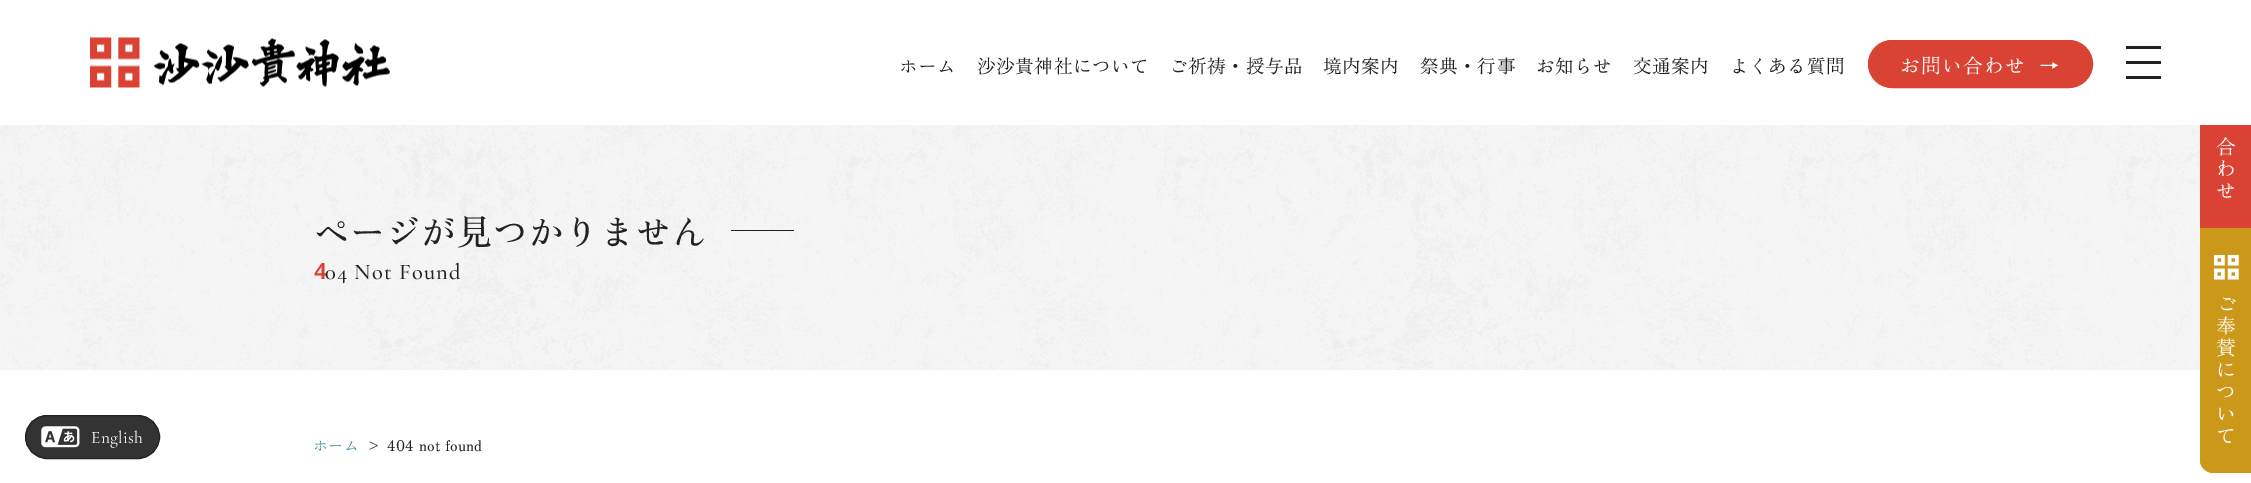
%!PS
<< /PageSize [2251 483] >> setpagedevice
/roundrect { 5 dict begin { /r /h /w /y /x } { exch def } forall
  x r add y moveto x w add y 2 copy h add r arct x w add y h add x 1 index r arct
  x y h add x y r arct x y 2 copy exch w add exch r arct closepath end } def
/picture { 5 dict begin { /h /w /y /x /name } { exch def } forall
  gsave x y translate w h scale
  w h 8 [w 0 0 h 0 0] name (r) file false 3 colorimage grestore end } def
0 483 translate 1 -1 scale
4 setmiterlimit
1 setgray
0 0 2251 483 rectfill
0.855 0.259 0.2 setrgbcolor
2200 125 51 103 rectfill
newpath 2212 12 moveto 2251 12 lineto 2251 227 lineto 2200 227 lineto 2200 25 lineto 2200 18 2206 12 2212 12 curveto closepath 2212 13 moveto 2251 13 lineto 2251 226 lineto 2201 226 lineto 2201 25 lineto 2201 18 2206 13 2212 13 curveto closepath eofill
1 setgray
2200 12 51 113 rectfill
(img1.rgb) 90 37 300 51 picture
/ZenOldMincho-Regular [18.75 0 0 -18.75 0 0] selectfont
0.133 setgray
899 73 moveto 0.4 0 (ホーム) ashow
977 73 moveto 0.4 0 (沙沙貴神社について) ashow
1169 73 moveto 0.4 0 (ご祈祷・授与品) ashow
1323 73 moveto 0.4 0 (境内案内) ashow
1420 73 moveto 0.4 0 (祭典・行事) ashow
1536 73 moveto 0.4 0 (お知らせ) ashow
1633 73 moveto 0.4 0 (交通案内) ashow
1730 73 moveto 0.4 0 (よくある質問) ashow
0.855 0.259 0.2 setrgbcolor
1868.5 40.5 224 47 23.5 roundrect gsave fill grestore
stroke
/ZenOldMincho-Regular [20 0 0 -20 0 0] selectfont
1 setgray
1900 73 moveto 1 0 (お問い合わせ) ashow
2039 73 moveto 1 0 (→) ashow
0.133 setgray
2126 46 35 3 rectfill
2126 61 35 3 rectfill
2126 76 35 3 rectfill
(img2.rgb) 0 125 2200 245 picture
/ZenOldMincho-Medium [35 0 0 -35 0 0] selectfont
314 245 moveto 0.75 0 (ページが見つかりません) ashow
731 230 63 1 rectfill
/NotoSans-SemiBold [22.5 0 0 -22.5 0 0] selectfont
0.855 0.259 0.2 setrgbcolor
314 279 moveto 1.1 0 (4) ashow
/CormorantGaramond-Medium [22.5 0 0 -22.5 0 0] selectfont
0.133 setgray
325 279 moveto 1.1 0 (04 Not Found) ashow
/ZenOldMincho-Regular [20 0 0 -20 0 0] selectfont
1 setgray
2216 154 moveto (合) show
2216 176 moveto (わ) show
2216 198 moveto (せ) show
0.8 0.596 0.102 setrgbcolor
newpath 2200 229 moveto 2251 229 lineto 2251 473 lineto 2213 473 lineto 2206 473 2200 467 2200 460 curveto closepath fill
newpath 2200 228 moveto 2251 228 lineto 2251 472 lineto 2212 472 lineto 2206 472 2200 466 2200 460 curveto closepath 2201 230 moveto 2251 230 lineto 2251 471 lineto 2212 471 lineto 2206 471 2201 466 2201 460 curveto closepath eofill
(img3.rgb) 2214 255 25 25 picture
1 setgray
2217 311 moveto (ご) show
2216 333 moveto (奉) show
2216 355 moveto (賛) show
2216 377 moveto (に) show
2216 399 moveto (つ) show
2216 421 moveto (い) show
2216 443 moveto (て) show
0.2 setgray
25.5 415.5 134 43 21.5 roundrect gsave fill grestore
0.133 setgray
stroke
(img4.rgb) 41 426 39 22 picture
/CormorantGaramond-Regular [17.5 0 0 -17.5 0 0] selectfont
1 setgray
91 443 moveto 0.25 0 (English) ashow
/ZenOldMincho-Regular [15 0 0 -15 0 0] selectfont
0.224 0.561 0.647 setrgbcolor
313 451 moveto 0.25 0 (ホーム) ashow
0.133 setgray
366 451 moveto 0.25 0 (>) ashow
387 451 moveto 0.25 0 (404 not found) ashow
showpage
